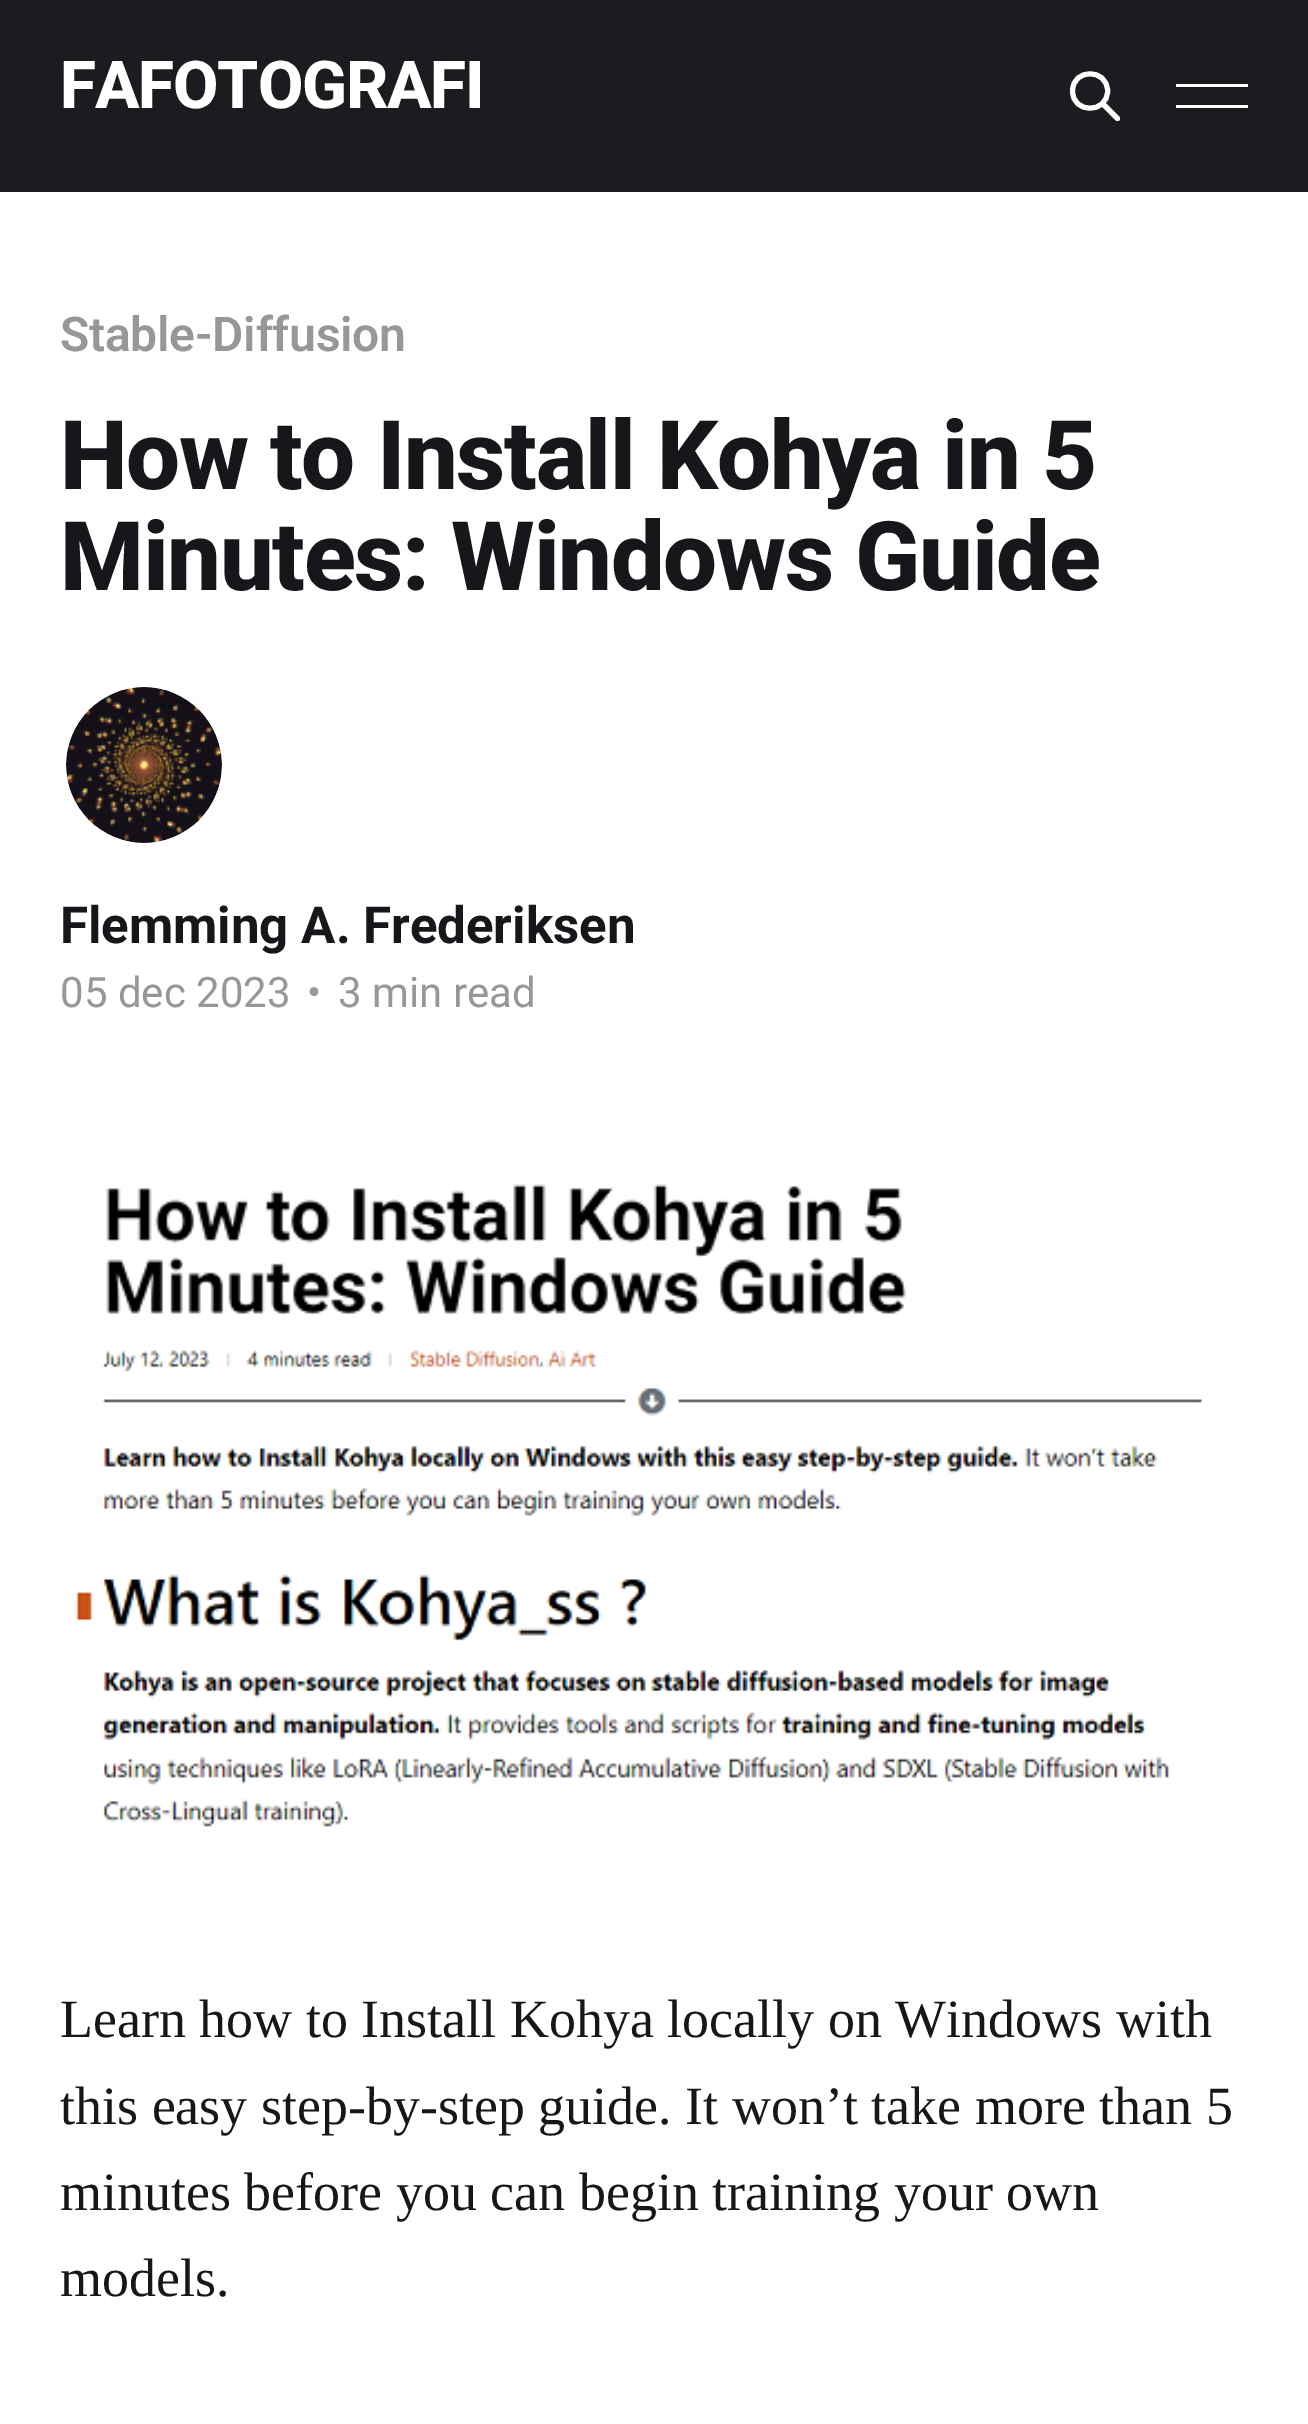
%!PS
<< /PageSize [1308 2424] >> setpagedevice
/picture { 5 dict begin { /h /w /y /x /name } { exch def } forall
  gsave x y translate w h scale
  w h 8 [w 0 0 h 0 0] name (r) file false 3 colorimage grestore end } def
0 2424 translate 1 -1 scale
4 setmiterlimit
1 setgray
0 0 1308 2424 rectfill
0.102 0.11 0.125 setrgbcolor
0 0 1308 192 rectfill
/Roboto-ExtraBold [66 0 0 -66 0 0] selectfont
1 setgray
60 108 moveto -1.25 0 (FAFOTOGRAFI) ashow
5 setlinewidth
1 setlinecap
1 setlinejoin
newpath 1117.5 118.5 moveto 1102.5 103.5 lineto 1107.5 91 moveto 1107.5 114 1072.5 114 1072.5 91 curveto 1072.5 68 1107.5 68 1107.5 91 curveto closepath stroke
1176 84 72 3 rectfill
1176 105 72 3 rectfill
/Roboto-SemiBold [48 0 0 -48 0 0] selectfont
0.592 setgray
60 351 moveto -0.25 0 (Stable-Diffusion) ashow
/Roboto-ExtraBold [96 0 0 -96 0 0] selectfont
0.082 0.09 0.102 setrgbcolor
60 489 moveto -1.4 0 (How to Install Kohya in 5) ashow
60 590 moveto -1.4 0 (Minutes: Windows Guide) ashow
(img1.rgb) 66 687 156 156 picture
/Roboto-Bold [51 0 0 -51 0 0] selectfont
60 943 moveto (Flemming A. Frederiksen) show
/Roboto-Regular [42 0 0 -42 0 0] selectfont
0.592 setgray
60 1007 moveto (05 dec 2023) show
307 1007 moveto (•) show
338 1007 moveto (3 min read) show
(img2.rgb) 75 1184 1127 643 picture
/LiberationSerif-Regular [54 0 0 -54 0 0] selectfont
0.082 0.09 0.102 setrgbcolor
60 2037 moveto (Learn how to Install Kohya locally on Windows with) show
60 2124 moveto (this easy step-by-step guide. It won’t take more than 5) show
60 2210 moveto (minutes before you can begin training your own) show
60 2296 moveto (models.) show
showpage
